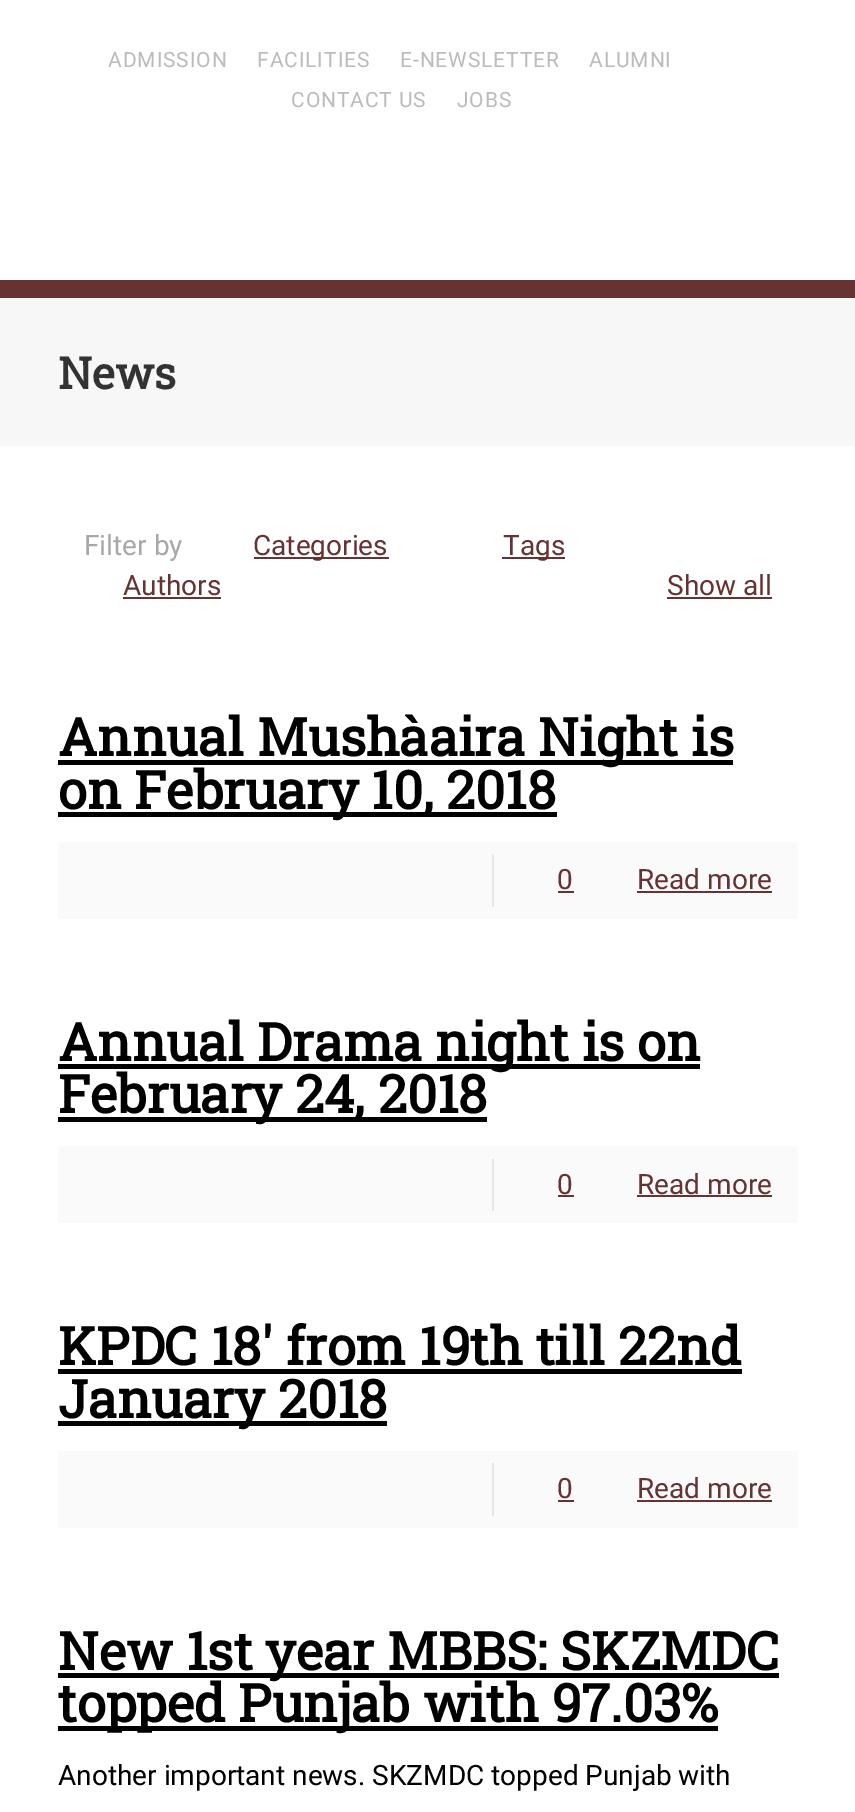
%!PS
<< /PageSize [855 1812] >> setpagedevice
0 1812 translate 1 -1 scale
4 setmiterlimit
1 setgray
0 0 855 1812 rectfill
/Roboto-Regular [21 0 0 -21 0 0] selectfont
0.733 setgray
108 67 moveto 0.9 0 (ADMISSION) ashow
257 67 moveto 0.9 0 (FACILITIES) ashow
400 67 moveto 0.9 0 (E-NEWSLETTER) ashow
589 67 moveto 0.9 0 (ALUMNI) ashow
291 107 moveto 0.9 0 (CONTACT US) ashow
457 107 moveto 0.9 0 (JOBS) ashow
0.4 0.2 0.196 setrgbcolor
0 280 855 18 rectfill
0.969 setgray
0 298 855 148 rectfill
/RobotoSlab-Bold [44 0 0 -44 0 0] selectfont
0.2 setgray
58 389 moveto (News) show
/Roboto-Regular [28 0 0 -28 0 0] selectfont
0.659 setgray
84 555 moveto (Filter by) show
0.4 0.2 0.196 setrgbcolor
254 557 135 2 rectfill
253 555 moveto (Categories) show
502 557 63 2 rectfill
503 555 moveto (Tags) show
123 595 moveto (Authors) show
123 597 98 2 rectfill
667 595 moveto (Show all) show
667 597 105 2 rectfill
0 setgray
58 760 675 5 rectfill
/RobotoSlab-Bold [52.5 0 0 -52.5 0 0] selectfont
58 756 moveto (Annual Mushàaira Night is) show
58 812 499 5 rectfill
58 809 moveto (on February 10, 2018) show
0.98 setgray
58 842 740 77 rectfill
0.902 setgray
492 854 2 53 rectfill
/Roboto-Regular [28 0 0 -28 0 0] selectfont
0.4 0.2 0.196 setrgbcolor
557 889 moveto (0) show
558 891 16 2 rectfill
637 889 moveto (Read more) show
637 891 135 2 rectfill
0 setgray
58 1064 642 5 rectfill
/RobotoSlab-Bold [52.5 0 0 -52.5 0 0] selectfont
58 1061 moveto (Annual Drama night is on) show
58 1117 429 5 rectfill
58 1113 moveto (February 24, 2018) show
0.98 setgray
58 1146 740 77 rectfill
0.902 setgray
492 1159 2 52 rectfill
/Roboto-Regular [28 0 0 -28 0 0] selectfont
0.4 0.2 0.196 setrgbcolor
557 1194 moveto (0) show
558 1195 16 2 rectfill
637 1194 moveto (Read more) show
637 1195 135 2 rectfill
/RobotoSlab-Bold [52.5 0 0 -52.5 0 0] selectfont
0 setgray
58 1365 moveto (KPDC 18′ from 19th till 22nd) show
58 1369 684 5 rectfill
58 1421 329 5 rectfill
58 1418 moveto (January 2018) show
0.98 setgray
58 1451 740 77 rectfill
0.902 setgray
492 1463 2 53 rectfill
/Roboto-Regular [28 0 0 -28 0 0] selectfont
0.4 0.2 0.196 setrgbcolor
557 1498 moveto (0) show
558 1500 16 2 rectfill
637 1498 moveto (Read more) show
637 1500 135 2 rectfill
0 setgray
58 1673 721 5 rectfill
/RobotoSlab-Bold [52.5 0 0 -52.5 0 0] selectfont
58 1670 moveto (New 1st year MBBS: SKZMDC) show
58 1726 660 5 rectfill
58 1722 moveto (topped Punjab with 97.03%) show
/Roboto-Regular [28 0 0 -28 0 0] selectfont
58 1785 moveto (Another important news. SKZMDC topped Punjab with) show
showpage
